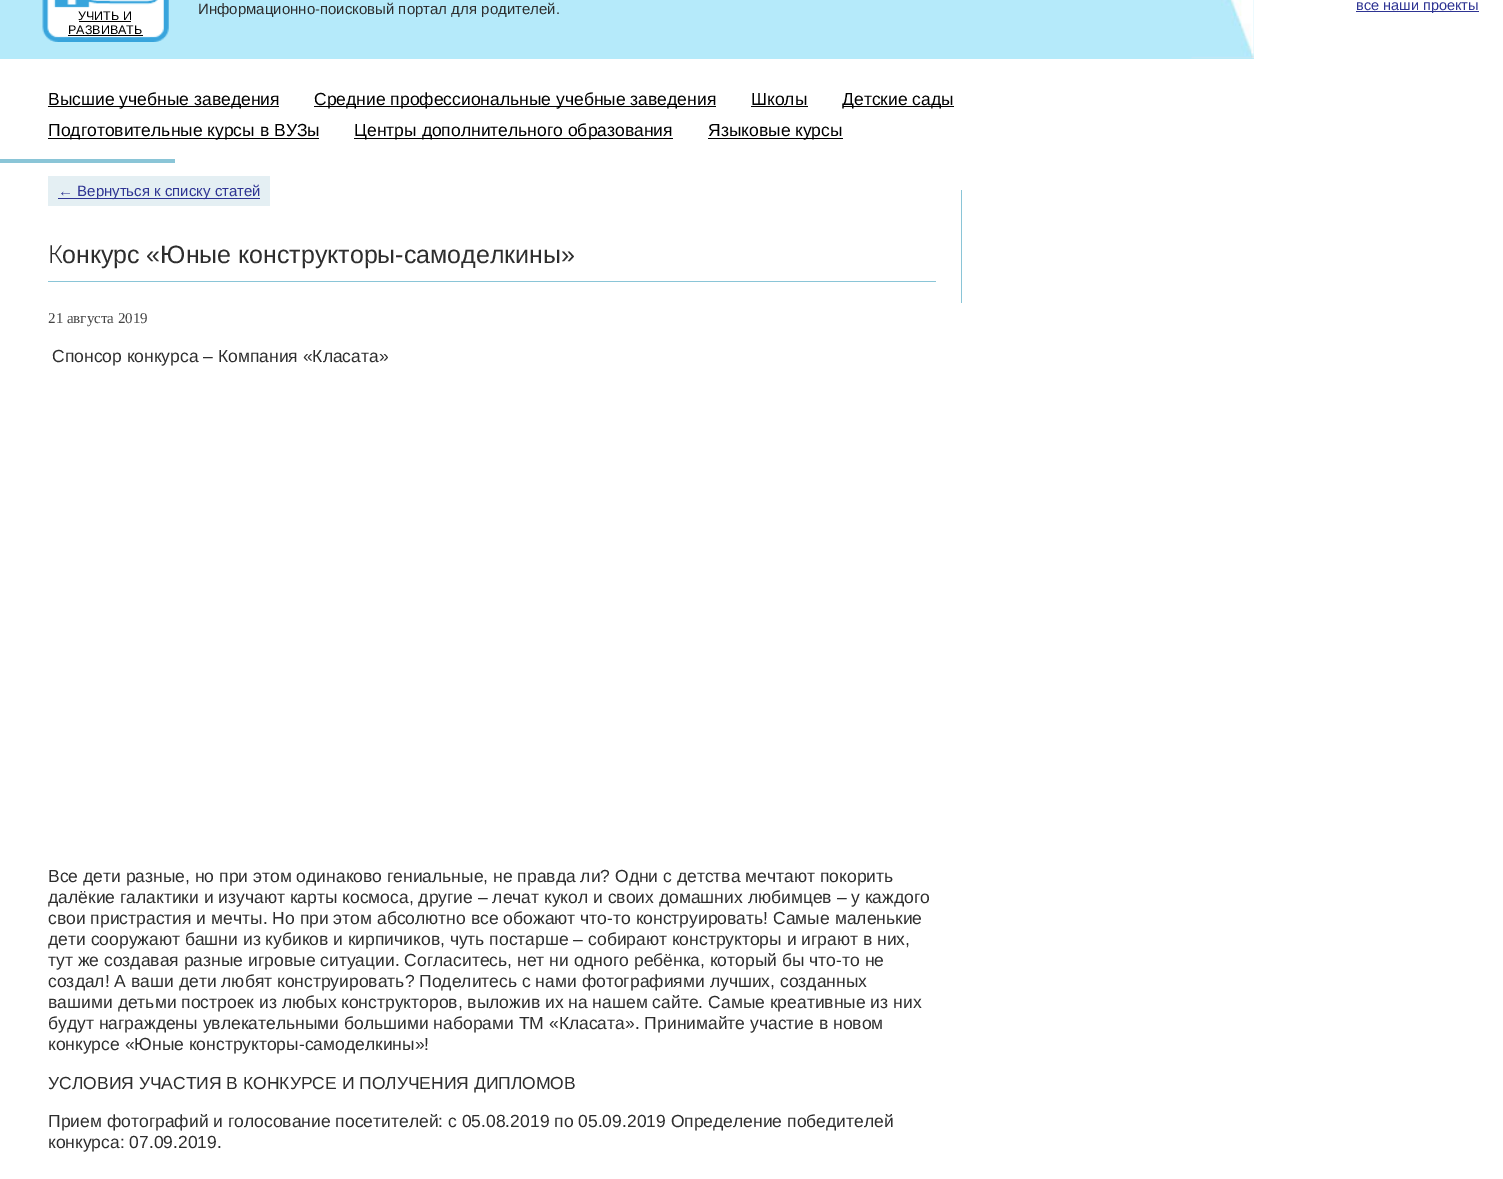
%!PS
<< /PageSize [1503 1179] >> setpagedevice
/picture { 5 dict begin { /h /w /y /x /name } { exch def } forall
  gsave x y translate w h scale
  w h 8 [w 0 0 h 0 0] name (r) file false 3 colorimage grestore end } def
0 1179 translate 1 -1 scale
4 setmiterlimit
1 setgray
0 0 1503 1179 rectfill
0.71 0.918 0.98 setrgbcolor
0 0 1254 59 rectfill
(img1.rgb) 1191 0 63 59 picture
(img2.rgb) 42 0 127 42 picture
/LiberationSans-Regular [12.5 0 0 -12.5 0 0] selectfont
0 setgray
78 20 moveto (УЧИТЬ И) show
79 21 52 1 rectfill
68 34 moveto (РАЗВИВАТЬ) show
68 35 75 1 rectfill
/LiberationSans-Regular [15 0 0 -15 0 0] selectfont
0.18 setgray
198 14 moveto (Информационно-поисковый портал для родителей.) show
0.18 0.204 0.576 setrgbcolor
1356 11 123 1 rectfill
/LiberationSans-Regular [14.5 0 0 -14.5 0 0] selectfont
1356 10 moveto (все наши проекты) show
0 setgray
48 106 231 1 rectfill
/LiberationSans-Regular [17.5 0 0 -17.5 0 0] selectfont
48 105 moveto (Высшие учебные заведения) show
314 106 402 1 rectfill
314 105 moveto (Средние профессиональные учебные заведения) show
751 105 moveto (Школы) show
751 106 57 1 rectfill
843 106 111 1 rectfill
842 105 moveto (Детские сады) show
48 138 271 1 rectfill
48 136 moveto (Подготовительные курсы в ВУЗы) show
354 138 319 1 rectfill
354 136 moveto (Центры дополнительного образования) show
708 138 135 1 rectfill
708 136 moveto (Языковые курсы) show
0.541 0.773 0.843 setrgbcolor
0 159 175 4 rectfill
0.894 0.937 0.953 setrgbcolor
48 176 222 30 rectfill
0.18 0.204 0.576 setrgbcolor
58 198 202 1 rectfill
/LiberationSans-Regular [15 0 0 -15 0 0] selectfont
58 196 moveto (← Вернуться к списку статей) show
0.541 0.773 0.843 setrgbcolor
48 281 888 1 rectfill
/NotoSans-Light [25 0 0 -25 0 0] selectfont
0.18 setgray
48 263 moveto (К) show
/LiberationSans-Regular [25 0 0 -25 0 0] selectfont
62 263 moveto (онкурс «Юные конструкторы-самоделкины») show
/LiberationSerif-Regular [15 0 0 -15 0 0] selectfont
0.267 setgray
48 323 moveto (21 августа 2019) show
/LiberationSans-Regular [17.5 0 0 -17.5 0 0] selectfont
0.18 setgray
52 362 moveto (Спонсор конкурса – Компания «Класата») show
48 882 moveto (Все дети разные, но при этом одинаково гениальные, не правда ли? Одни с детства мечтают покорить) show
48 903 moveto (далёкие галактики и изучают карты космоса, другие – лечат кукол и своих домашних любимцев – у каждого) show
48 924 moveto (свои пристрастия и мечты. Но при этом абсолютно все обожают что-то конструировать! Самые маленькие) show
48 945 moveto (дети сооружают башни из кубиков и кирпичиков, чуть постарше – собирают конструкторы и играют в них,) show
48 966 moveto (тут же создавая разные игровые ситуации. Согласитесь, нет ни одного ребёнка, который бы что-то не) show
48 987 moveto (создал! А ваши дети любят конструировать? Поделитесь с нами фотографиями лучших, созданных) show
48 1008 moveto (вашими детьми построек из любых конструкторов, выложив их на нашем сайте. Самые креативные из них) show
48 1029 moveto (будут награждены увлекательными большими наборами ТМ «Класата». Принимайте участие в новом) show
48 1050 moveto (конкурсе «Юные конструкторы-самоделкины»!) show
48 1089 moveto (УСЛОВИЯ УЧАСТИЯ В КОНКУРСЕ И ПОЛУЧЕНИЯ ДИПЛОМОВ) show
48 1127 moveto (Прием фотографий и голосование посетителей: с 05.08.2019 по 05.09.2019 Определение победителей) show
48 1148 moveto (конкурса: 07.09.2019.) show
0.541 0.773 0.843 setrgbcolor
961 190 1 113 rectfill
showpage
